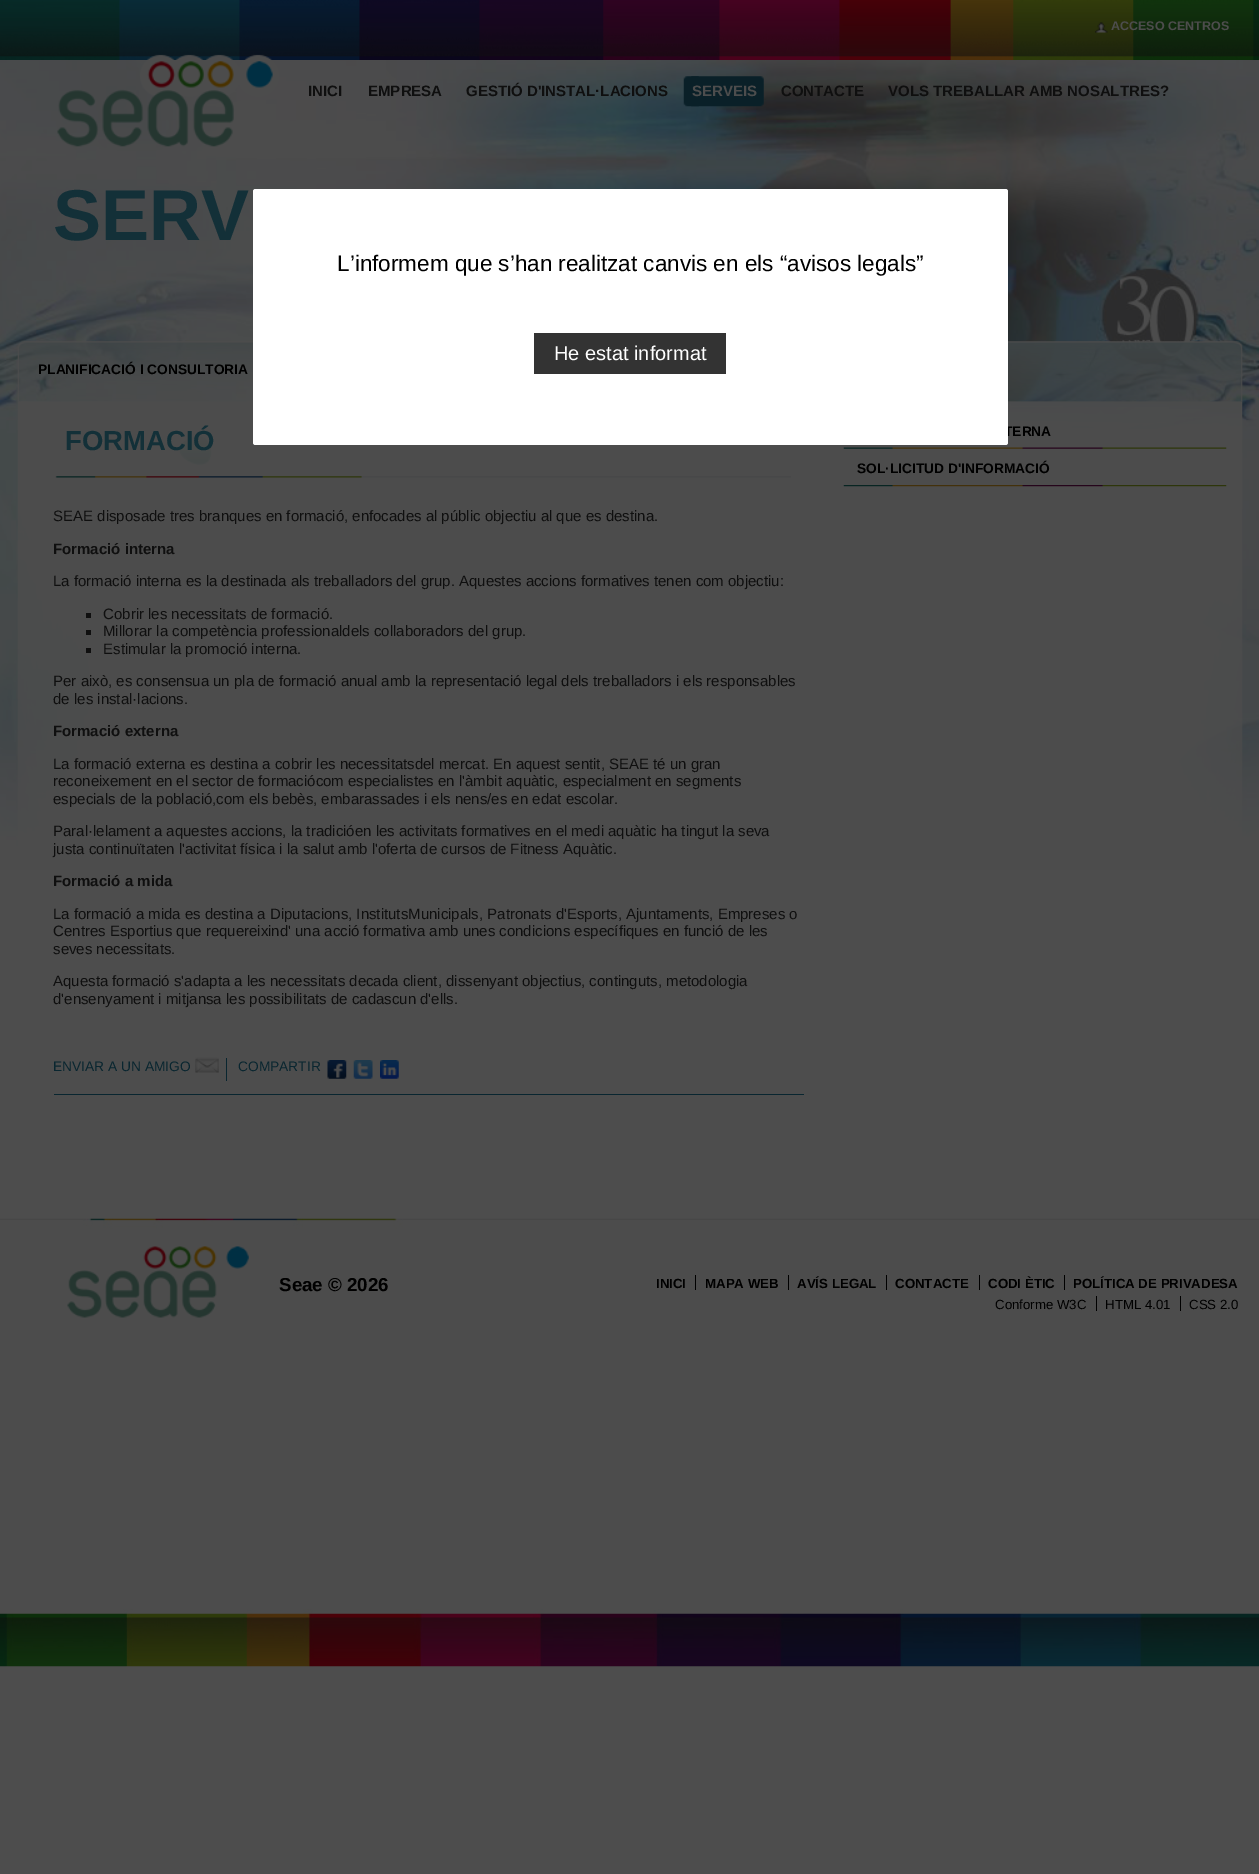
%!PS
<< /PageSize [1259 1874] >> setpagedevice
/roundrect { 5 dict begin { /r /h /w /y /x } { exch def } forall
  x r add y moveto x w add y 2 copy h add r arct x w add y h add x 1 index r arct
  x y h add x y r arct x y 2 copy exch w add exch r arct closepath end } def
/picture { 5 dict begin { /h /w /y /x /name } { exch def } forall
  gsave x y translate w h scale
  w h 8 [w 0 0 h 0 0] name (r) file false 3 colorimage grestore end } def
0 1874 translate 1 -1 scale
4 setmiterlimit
0.302 setgray
0 0 1259 1874 rectfill
(img1.rgb) 0 60 1259 810 picture
(img2.rgb) 0 0 1259 60 picture
(img3.rgb) 1095 22 13 11 picture
/LiberationSans-Bold [12.5 0 0 -12.5 0 0] selectfont
1111 30 moveto (ACCESO CENTROS) show
(img4.rgb) 57 54 222 93 picture
/LiberationSans-Bold [15 0 0 -15 0 0] selectfont
0.059 setgray
308 96 moveto (INICI) show
368 96 moveto (EMPRESA) show
466 96 moveto (GESTIÓ D'INSTAL·LACIONS) show
(img5.rgb) 683 76 16 31 picture
(img6.rgb) 691 76 73 31 picture
0.302 setgray
692 96 moveto (SERVEIS) show
0.059 setgray
781 96 moveto (CONTACTE) show
888 96 moveto (VOLS TREBALLAR AMB NOSALTRES?) show
/LiberationSans-Bold [72 0 0 -72 0 0] selectfont
0.075 0.188 0.22 setrgbcolor
53 240 moveto (SERV) show
(img8.rgb) 17 401 1226 469 picture
(img7.rgb) 17 341 1226 61 picture
/LiberationSans-Bold [13.75 0 0 -13.75 0 0] selectfont
0 setgray
38 374 moveto (PLANIFICACIÓ I CONSULTORIA) show
(img9.rgb) 55 476 736 2 picture
/LiberationSans-Bold [27.5 0 0 -27.5 0 0] selectfont
0.075 0.188 0.22 setrgbcolor
65 450 moveto (FORMACIÓ) show
(img10.rgb) 843 447 384 2 picture
/LiberationSans-Bold [13.75 0 0 -13.75 0 0] selectfont
0 setgray
1004 436 moveto (TERNA) show
(img11.rgb) 843 485 384 2 picture
857 473 moveto (SOL·LICITUD D'INFORMACIÓ) show
/LiberationSans-Regular [15 0 0 -15 0 0] selectfont
0.059 setgray
53 521 moveto (SEAE disposade tres branques en formació, enfocades al públic objectiu al que es destina.) show
/LiberationSans-Bold [15 0 0 -15 0 0] selectfont
53 554 moveto (Formació interna) show
/LiberationSans-Regular [15 0 0 -15 0 0] selectfont
53 586 moveto (La formació interna es la destinada als treballadors del grup. Aquestes accions formatives tenen com objectiu:) show
86 613 5 5 rectfill
103 619 moveto (Cobrir les necessitats de formació.) show
86 630 5 5 rectfill
103 636 moveto (Millorar la competència professionaldels collaboradors del grup.) show
86 648 5 5 rectfill
103 654 moveto (Estimular la promoció interna.) show
53 686 moveto (Per això, es consensua un pla de formació anual amb la representació legal dels treballadors i els responsables) show
53 704 moveto (de les instal·lacions.) show
/LiberationSans-Bold [15 0 0 -15 0 0] selectfont
53 736 moveto (Formació externa) show
/LiberationSans-Regular [15 0 0 -15 0 0] selectfont
53 769 moveto (La formació externa es destina a cobrir les necessitatsdel mercat. En aquest sentit, SEAE té un gran) show
53 786 moveto (reconeixement en el sector de formaciócom especialistes en l'àmbit aquàtic, especialment en segments) show
53 804 moveto (especials de la població,com els bebès, embarassades i els nens/es en edat escolar.) show
53 836 moveto (Paral·lelament a aquestes accions, la tradicióen les activitats formatives en el medi aquàtic ha tingut la seva) show
53 854 moveto (justa continuïtaten l'activitat física i la salut amb l'oferta de cursos de Fitness Aquàtic.) show
/LiberationSans-Bold [15 0 0 -15 0 0] selectfont
53 886 moveto (Formació a mida) show
/LiberationSans-Regular [15 0 0 -15 0 0] selectfont
53 919 moveto (La formació a mida es destina a Diputacions, InstitutsMunicipals, Patronats d'Esports, Ajuntaments, Empreses o) show
53 936 moveto (Centres Esportius que requereixind' una acció formativa amb unes condicions específiques en funció de les) show
53 954 moveto (seves necessitats.) show
53 986 moveto (Aquesta formació s'adapta a les necessitats decada client, dissenyant objectius, continguts, metodologia) show
53 1004 moveto (d'ensenyament i mitjansa les possibilitats de cadascun d'ells.) show
0.035 0.149 0.188 setrgbcolor
54 1094 750 1 rectfill
/LiberationSans-Regular [13.75 0 0 -13.75 0 0] selectfont
53 1071 moveto (ENVIAR A UN AMIGO) show
(img12.rgb) 195 1057 24 16 picture
226 1058 1 23 rectfill
238 1071 moveto (COMPARTIR) show
(img13.rgb) 327 1060 20 19 picture
(img14.rgb) 353 1060 20 19 picture
(img15.rgb) 380 1060 19 19 picture
1 setgray
253 189 755 256 2.5 roundrect fill
/LiberationSans-Regular [22.5 0 0 -22.5 0 0] selectfont
0 setgray
337 271 moveto (L’informem que s’han realitzat canvis en els “avisos legals”) show
0.2 setgray
534 333 192 41 rectfill
/LiberationSans-Regular [20 0 0 -20 0 0] selectfont
1 setgray
554 360 moveto (He estat informat) show
(img16.rgb) 0 1218 1259 449 picture
(img17.rgb) 18 1246 231 72 picture
/LiberationSans-Bold [18.75 0 0 -18.75 0 0] selectfont
0 setgray
279 1291 moveto (Seae © 2026) show
/LiberationSans-Bold [13.25 0 0 -13.25 0 0] selectfont
656 1288 moveto (INICI) show
705 1288 moveto (MAPA WEB) show
695 1275 1 15 rectfill
797 1288 moveto (AVÍS LEGAL) show
788 1275 1 15 rectfill
895 1288 moveto (CONTACTE) show
886 1275 1 15 rectfill
988 1288 moveto (CODI ÈTIC) show
979 1275 1 15 rectfill
1073 1288 moveto (POLÍTICA DE PRIVADESA) show
1064 1275 1 15 rectfill
/LiberationSans-Regular [13.25 0 0 -13.25 0 0] selectfont
995 1309 moveto (Conforme W3C) show
1105 1309 moveto (HTML 4.01) show
1096 1296 1 15 rectfill
1189 1309 moveto (CSS 2.0) show
1180 1296 1 15 rectfill
showpage
